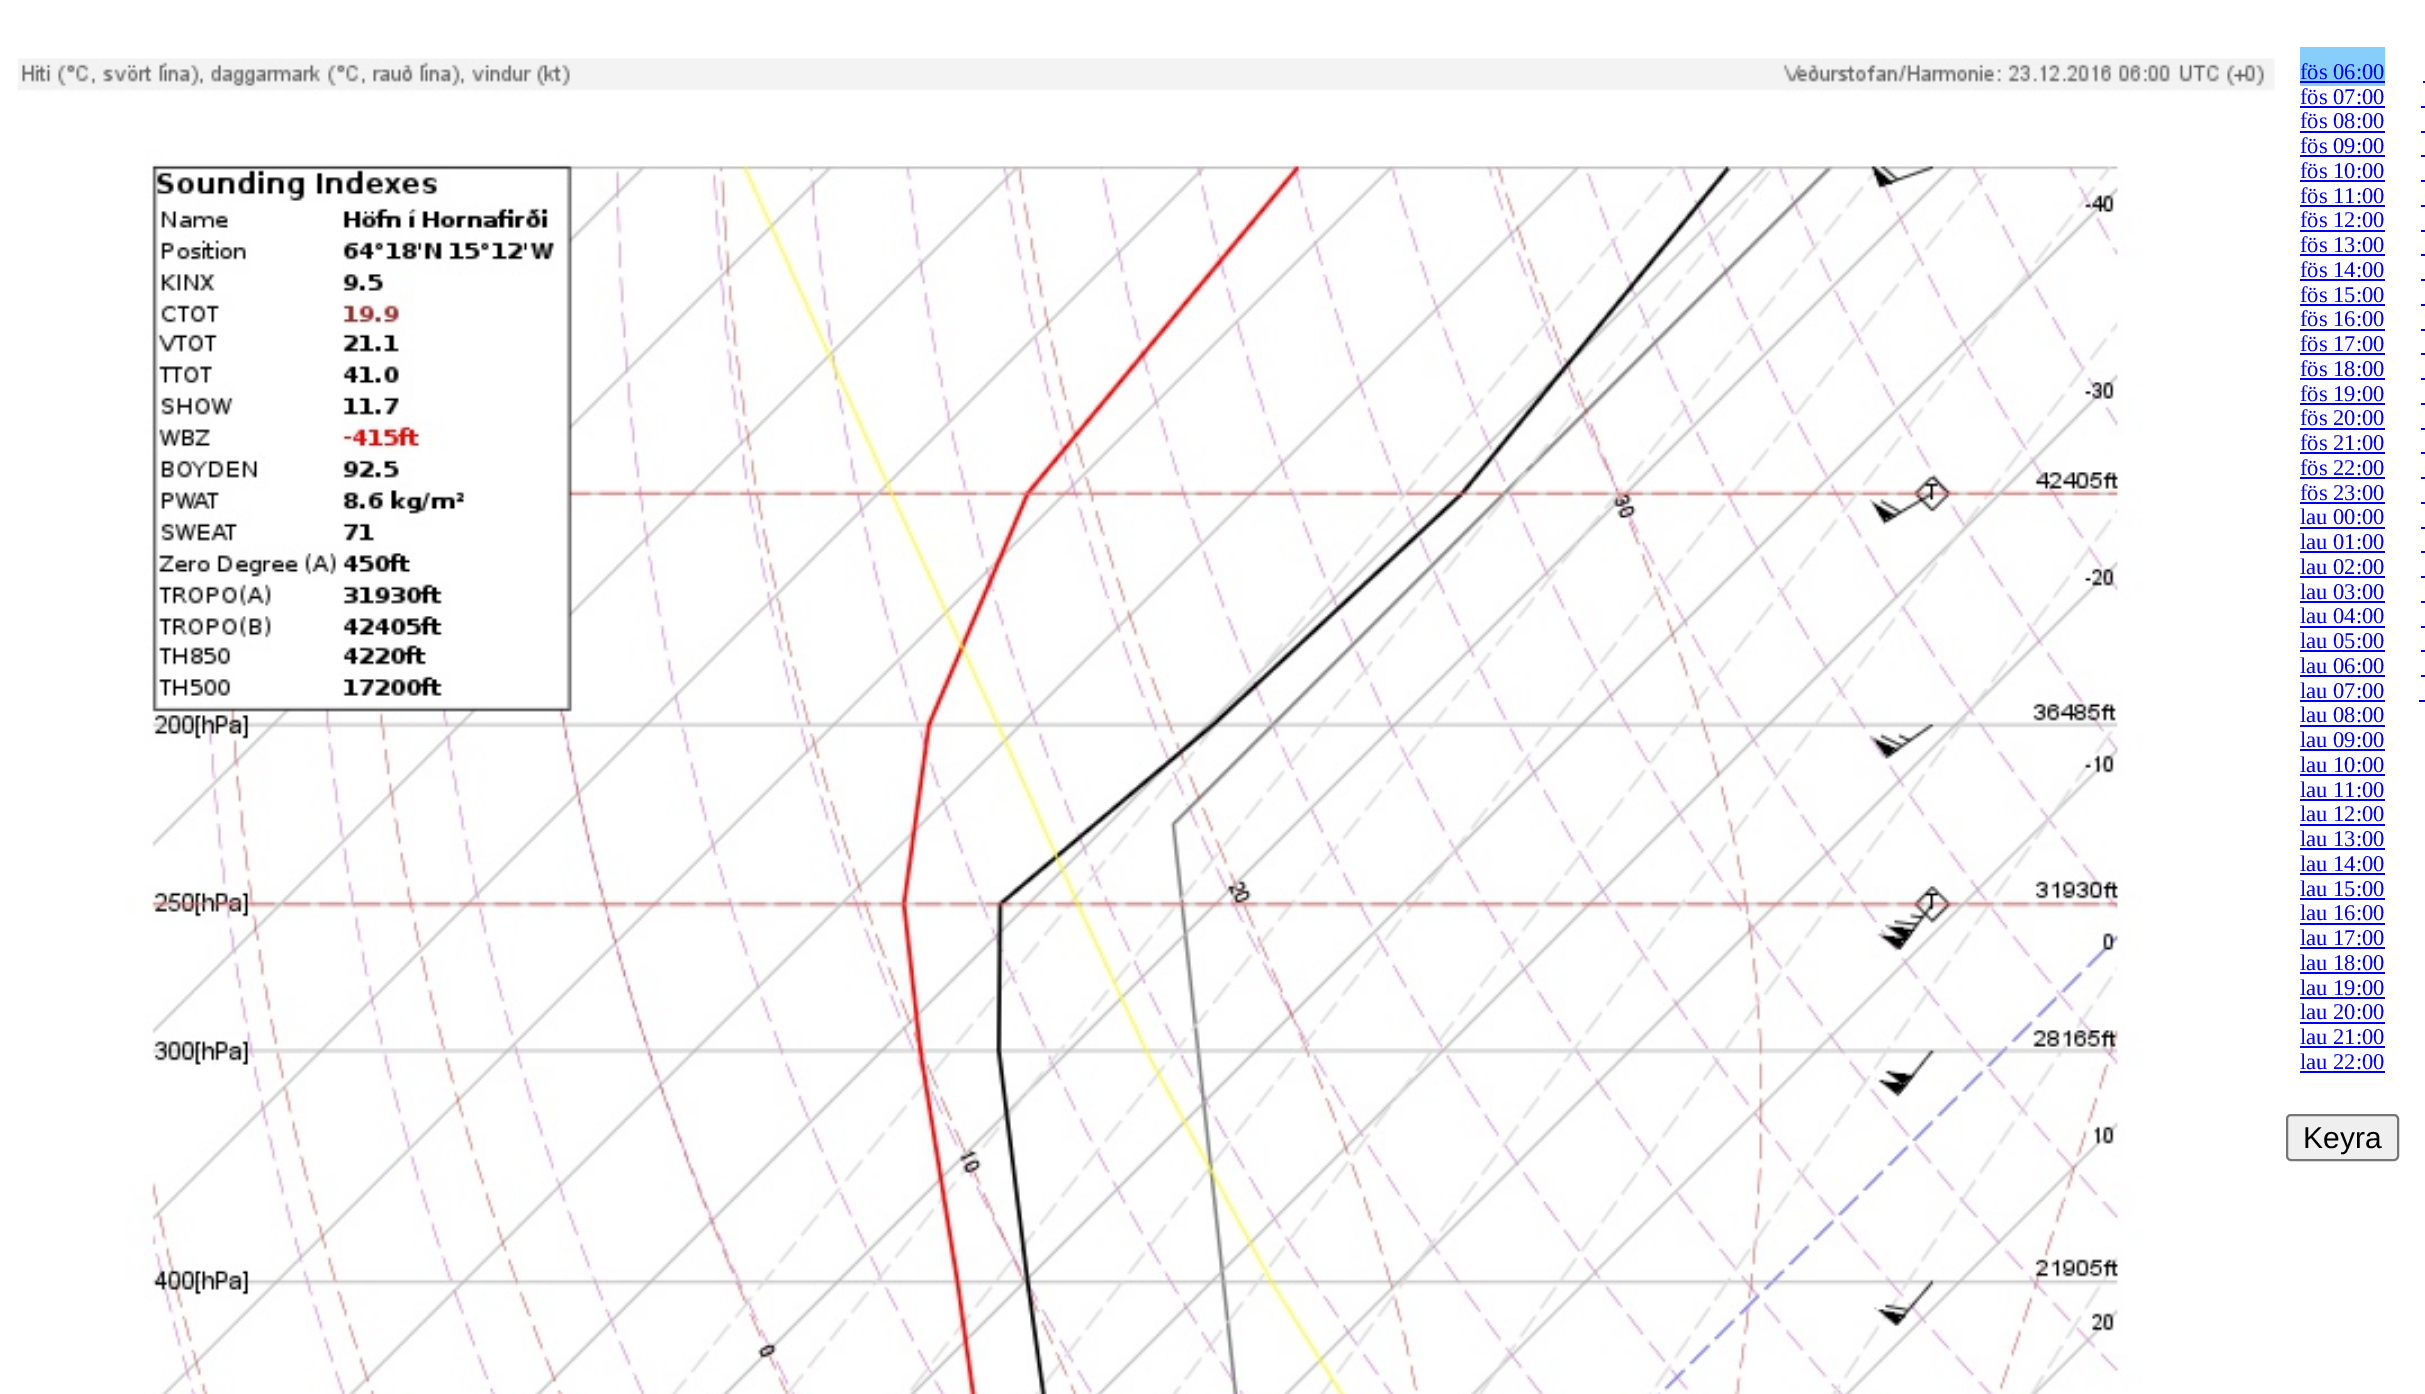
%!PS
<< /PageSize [2425 1394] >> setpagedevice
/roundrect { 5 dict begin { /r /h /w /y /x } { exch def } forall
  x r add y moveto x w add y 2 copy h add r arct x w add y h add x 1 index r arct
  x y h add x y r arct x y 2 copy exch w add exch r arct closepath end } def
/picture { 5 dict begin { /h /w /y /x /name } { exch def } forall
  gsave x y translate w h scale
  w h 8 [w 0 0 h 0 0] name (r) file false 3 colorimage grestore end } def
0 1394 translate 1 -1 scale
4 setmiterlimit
1 setgray
0 0 2425 1394 rectfill
(img1.rgb) 18 58 2257 1336 picture
0.529 0.808 0.98 setrgbcolor
2300 47 85 39 rectfill
/LiberationSerif-Regular [22.5 0 0 -22.5 0 0] selectfont
0 0 0.933 setrgbcolor
2300 79 moveto (fös 06:00) show
2300 81 85 2 rectfill
2300 104 moveto (fös 07:00) show
2300 106 85 2 rectfill
2300 128 moveto (fös 08:00) show
2300 131 85 2 rectfill
2300 153 moveto (fös 09:00) show
2300 155 85 2 rectfill
2300 178 moveto (fös 10:00) show
2300 180 85 2 rectfill
2300 203 moveto (fös 11:00) show
2300 205 85 2 rectfill
2300 227 moveto (fös 12:00) show
2300 230 85 2 rectfill
2300 252 moveto (fös 13:00) show
2300 254 85 2 rectfill
2300 277 moveto (fös 14:00) show
2300 279 85 2 rectfill
2300 302 moveto (fös 15:00) show
2300 304 85 2 rectfill
2300 326 moveto (fös 16:00) show
2300 329 85 2 rectfill
2300 351 moveto (fös 17:00) show
2300 353 85 2 rectfill
2300 376 moveto (fös 18:00) show
2300 378 85 2 rectfill
2300 401 moveto (fös 19:00) show
2300 403 85 2 rectfill
2300 425 moveto (fös 20:00) show
2300 428 85 2 rectfill
2300 450 moveto (fös 21:00) show
2300 452 85 2 rectfill
2300 475 moveto (fös 22:00) show
2300 477 85 2 rectfill
2300 500 moveto (fös 23:00) show
2300 502 85 2 rectfill
2300 524 moveto (lau 00:00) show
2300 527 85 2 rectfill
2300 549 moveto (lau 01:00) show
2300 551 85 2 rectfill
2300 574 moveto (lau 02:00) show
2300 576 85 2 rectfill
2300 599 moveto (lau 03:00) show
2300 601 85 2 rectfill
2300 623 moveto (lau 04:00) show
2300 626 85 2 rectfill
2300 648 moveto (lau 05:00) show
2300 650 85 2 rectfill
2300 673 moveto (lau 06:00) show
2300 675 85 2 rectfill
2300 698 moveto (lau 07:00) show
2300 700 85 2 rectfill
2300 722 moveto (lau 08:00) show
2300 725 85 2 rectfill
2300 747 moveto (lau 09:00) show
2300 749 85 2 rectfill
2300 772 moveto (lau 10:00) show
2300 774 85 2 rectfill
2300 797 moveto (lau 11:00) show
2300 799 85 2 rectfill
2300 821 moveto (lau 12:00) show
2300 824 85 2 rectfill
2300 846 moveto (lau 13:00) show
2300 848 85 2 rectfill
2300 871 moveto (lau 14:00) show
2300 873 85 2 rectfill
2300 896 moveto (lau 15:00) show
2300 898 85 2 rectfill
2300 920 moveto (lau 16:00) show
2300 923 85 2 rectfill
2300 945 moveto (lau 17:00) show
2300 947 85 2 rectfill
2300 970 moveto (lau 18:00) show
2300 972 85 2 rectfill
2300 995 moveto (lau 19:00) show
2300 997 85 2 rectfill
2300 1019 moveto (lau 20:00) show
2300 1022 85 2 rectfill
2300 1044 moveto (lau 21:00) show
2300 1046 85 2 rectfill
2300 1069 moveto (lau 22:00) show
2300 1071 85 2 rectfill
2423 81 2 2 rectfill
2421 106 4 2 rectfill
2421 131 4 2 rectfill
2421 155 4 2 rectfill
2421 180 4 2 rectfill
2421 205 4 2 rectfill
2421 230 4 2 rectfill
2421 254 4 2 rectfill
2421 279 4 2 rectfill
2421 304 4 2 rectfill
2421 329 4 2 rectfill
2421 353 4 2 rectfill
2421 378 4 2 rectfill
2421 403 4 2 rectfill
2421 428 4 2 rectfill
2421 452 4 2 rectfill
2421 477 4 2 rectfill
2421 502 4 2 rectfill
2421 527 4 2 rectfill
2421 551 4 2 rectfill
2421 576 4 2 rectfill
2421 601 4 2 rectfill
2421 626 4 2 rectfill
2421 650 4 2 rectfill
2421 675 4 2 rectfill
2419 700 6 2 rectfill
0.937 setgray
2287 1115 111 45 4 roundrect gsave fill grestore
0.463 setgray
2 setlinewidth
stroke
/LiberationSans-Regular [30 0 0 -30 0 0] selectfont
0 setgray
2303 1148 moveto (Keyra) show
showpage
